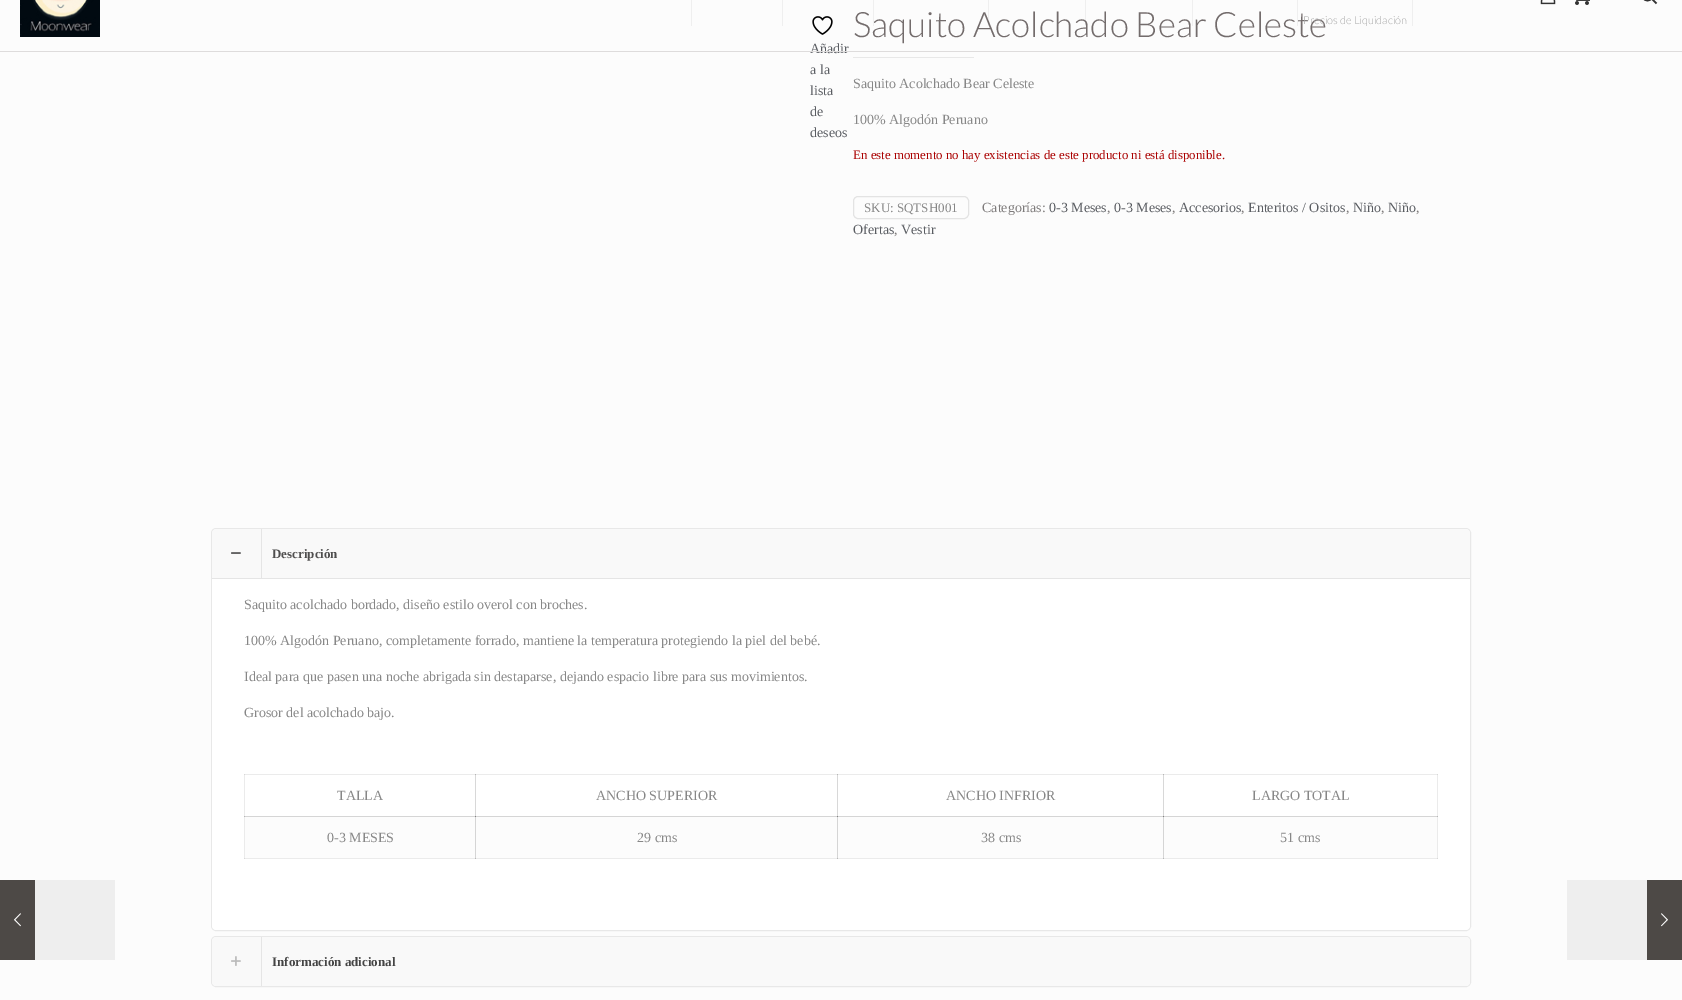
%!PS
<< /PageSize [1682 1000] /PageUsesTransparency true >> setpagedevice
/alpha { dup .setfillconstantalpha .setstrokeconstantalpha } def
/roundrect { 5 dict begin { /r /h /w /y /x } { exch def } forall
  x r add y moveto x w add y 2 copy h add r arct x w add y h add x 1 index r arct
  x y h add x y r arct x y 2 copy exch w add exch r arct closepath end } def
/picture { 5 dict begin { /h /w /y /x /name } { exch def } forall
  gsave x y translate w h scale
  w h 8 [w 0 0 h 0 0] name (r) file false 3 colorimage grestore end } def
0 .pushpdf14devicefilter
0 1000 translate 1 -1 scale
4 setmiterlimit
0.988 setgray
0 0 1682 1000 rectfill
0.302 0.286 0.275 setrgbcolor
0 880 35 80 rectfill
(img1.rgb) 14 913 7 14 picture
0.933 setgray
35 880 80 80 rectfill
(img2.rgb) 812 16 21 19 picture
/LiberationSerif-Regular [14 0 0 -14 0 0] selectfont
0.353 0.365 0.384 setrgbcolor
810 53 moveto (Añadir) show
810 74 moveto (a la) show
810 95 moveto (lista) show
810 116 moveto (de) show
810 137 moveto (deseos) show
/Lato-Light [35 0 0 -35 0 0] selectfont
0.451 0.424 0.424 setrgbcolor
853 37 moveto (Saquito Acolchado Bear Celeste) show
0.91 setgray
853 57 121 1 rectfill
/LiberationSerif-Regular [14 0 0 -14 0 0] selectfont
0.529 setgray
853 88 moveto (Saquito Acolchado Bear Celeste) show
853 124 moveto (100% Algodón Peruano) show
/LiberationSerif-Regular [12.9 0 0 -12.9 0 0] selectfont
0.667 0 0 setrgbcolor
853 159 moveto (En este momento no hay existencias de este producto ni está disponible.) show
0.89 setgray
853.5 196.5 115 22 4.5 roundrect stroke
/LiberationSerif-Regular [13 0 0 -13 0 0] selectfont
0.529 setgray
864 212 moveto (SKU: SQTSH001) show
/LiberationSerif-Regular [14 0 0 -14 0 0] selectfont
0.494 0.482 0.482 setrgbcolor
982 212 moveto (Categorías:) show
0.353 0.365 0.384 setrgbcolor
1049 212 moveto (0-3 Meses) show
0.494 0.482 0.482 setrgbcolor
1107 212 moveto (,) show
0.353 0.365 0.384 setrgbcolor
1114 212 moveto (0-3 Meses) show
0.494 0.482 0.482 setrgbcolor
1172 212 moveto (,) show
0.353 0.365 0.384 setrgbcolor
1179 212 moveto (Accesorios) show
0.494 0.482 0.482 setrgbcolor
1241 212 moveto (,) show
0.353 0.365 0.384 setrgbcolor
1248 212 moveto (Enteritos / Ositos) show
0.494 0.482 0.482 setrgbcolor
1346 212 moveto (,) show
0.353 0.365 0.384 setrgbcolor
1353 212 moveto (Niño) show
0.494 0.482 0.482 setrgbcolor
1381 212 moveto (,) show
0.353 0.365 0.384 setrgbcolor
1388 212 moveto (Niño) show
0.494 0.482 0.482 setrgbcolor
1416 212 moveto (,) show
0.353 0.365 0.384 setrgbcolor
853 234 moveto (Ofertas) show
0.494 0.482 0.482 setrgbcolor
894 234 moveto (,) show
0.353 0.365 0.384 setrgbcolor
901 234 moveto (Vestir) show
0.91 setgray
211.5 528.5 1259 402 4.5 roundrect stroke
0.976 setgray
newpath 216 529 moveto 1466 529 lineto 1468 529 1470 531 1470 533 curveto 1470 579 lineto 212 579 lineto 212 533 lineto 212 531 214 529 216 529 curveto closepath fill
0.898 setgray
212 578 1258 1 rectfill
(img3.rgb) 231 552 10 2 picture
261 529 1 49 rectfill
/LiberationSerif-Bold [13 0 0 -13 0 0] selectfont
0.31 0.306 0.306 setrgbcolor
272 558 moveto (Descripción) show
1 setgray
newpath 212 579 moveto 1470 579 lineto 1470 926 lineto 1470 928 1468 930 1466 930 curveto 216 930 lineto 214 930 212 928 212 926 curveto closepath fill
0.922 setgray
244 774 1 85 rectfill
244 774 232 1 rectfill
0.847 setgray
244 774 1 1 rectfill
475 774 1 43 rectfill
0.922 setgray
475 774 363 1 rectfill
0.718 setgray
475 774 1 1 rectfill
0.847 setgray
837 774 1 43 rectfill
0.922 setgray
837 774 327 1 rectfill
0.718 setgray
837 774 1 1 rectfill
0.847 setgray
1163 774 1 43 rectfill
0.922 setgray
1437 774 1 43 rectfill
244 858 1194 1 rectfill
0.847 setgray
244 858 1 1 rectfill
0.718 setgray
244 816 1 1 rectfill
475 858 1 1 rectfill
837 858 1 1 rectfill
1163 858 1 1 rectfill
0.922 setgray
1437 816 1 43 rectfill
0.847 setgray
1437 858 1 1 rectfill
0.718 setgray
1437 816 1 1 rectfill
/LiberationSerif-Regular [14 0 0 -14 0 0] selectfont
0.529 setgray
244 609 moveto (Saquito acolchado bordado, diseño estilo overol con broches.) show
244 645 moveto (100% Algodón Peruano, completamente forrado, mantiene la temperatura protegiendo la piel del bebé.) show
244 681 moveto (Ideal para que pasen una noche abrigada sin destaparse, dejando espacio libre para sus movimientos.) show
244 717 moveto (Grosor del acolchado bajo.) show
337 800 moveto (TALLA) show
596 800 moveto (ANCHO SUPERIOR) show
946 800 moveto (ANCHO INFRIOR) show
0.922 setgray
1163 774 275 1 rectfill
0.718 setgray
1163 774 1 1 rectfill
0.847 setgray
1437 774 1 1 rectfill
0.529 setgray
1252 800 moveto (LARGO TOTAL) show
0.988 setgray
245 817 230 41 rectfill
0.835 setgray
245 816 918 1 rectfill
475 816 1 42 rectfill
0.51 setgray
475 816 1 1 rectfill
0.529 setgray
327 842 moveto (0-3 MESES) show
0.988 setgray
476 817 361 41 rectfill
0.835 setgray
837 816 1 42 rectfill
0.51 setgray
837 816 1 1 rectfill
0.529 setgray
637 842 moveto (29 cms) show
0.988 setgray
838 817 325 41 rectfill
0.529 setgray
981 842 moveto (38 cms) show
0.988 setgray
1164 817 273 41 rectfill
0.835 setgray
1163 816 1 42 rectfill
1163 816 274 1 rectfill
0.51 setgray
1163 816 1 1 rectfill
0.529 setgray
1280 842 moveto (51 cms) show
0.91 setgray
211.5 936.5 1259 50 4.5 roundrect stroke
0.976 setgray
212 937 1258 49 4 roundrect fill
(img4.rgb) 231 956 10 10 picture
0.898 setgray
261 937 1 49 rectfill
/LiberationSerif-Bold [13 0 0 -13 0 0] selectfont
0.267 setgray
272 966 moveto (Información adicional) show
0.871 0.863 0.863 setrgbcolor
0 51 1682 1 rectfill
(img5.rgb) 1540 0 16 5 picture
(img6.rgb) 1575 0 15 5 picture
0.2 setgray
1.5 setlinewidth
newpath 1647.5 -5.5 6 0 360 arc closepath stroke
newpath 1651.5 -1.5 moveto 1656.5 3.5 lineto stroke
(img7.rgb) 20 0 80 37 picture
0.937 setgray
691 0 1 26 rectfill
782 0 1 26 rectfill
873 0 1 26 rectfill
0.05 alpha
0 setgray
988 0 1 26 rectfill
1085 0 1 26 rectfill
1 alpha
0.937 setgray
1192 0 1 26 rectfill
0.05 alpha
0 setgray
1297 0 1 26 rectfill
1 alpha
0.937 setgray
1412 0 1 26 rectfill
/Lato-Light [11 0 0 -11 0 0] selectfont
0.667 setgray
1303 24 moveto (Precios de Liquidación) show
0.933 setgray
1567 880 80 80 rectfill
0.302 0.286 0.275 setrgbcolor
1647 880 35 80 rectfill
(img8.rgb) 1661 913 7 14 picture
.poppdf14devicefilter showpage
